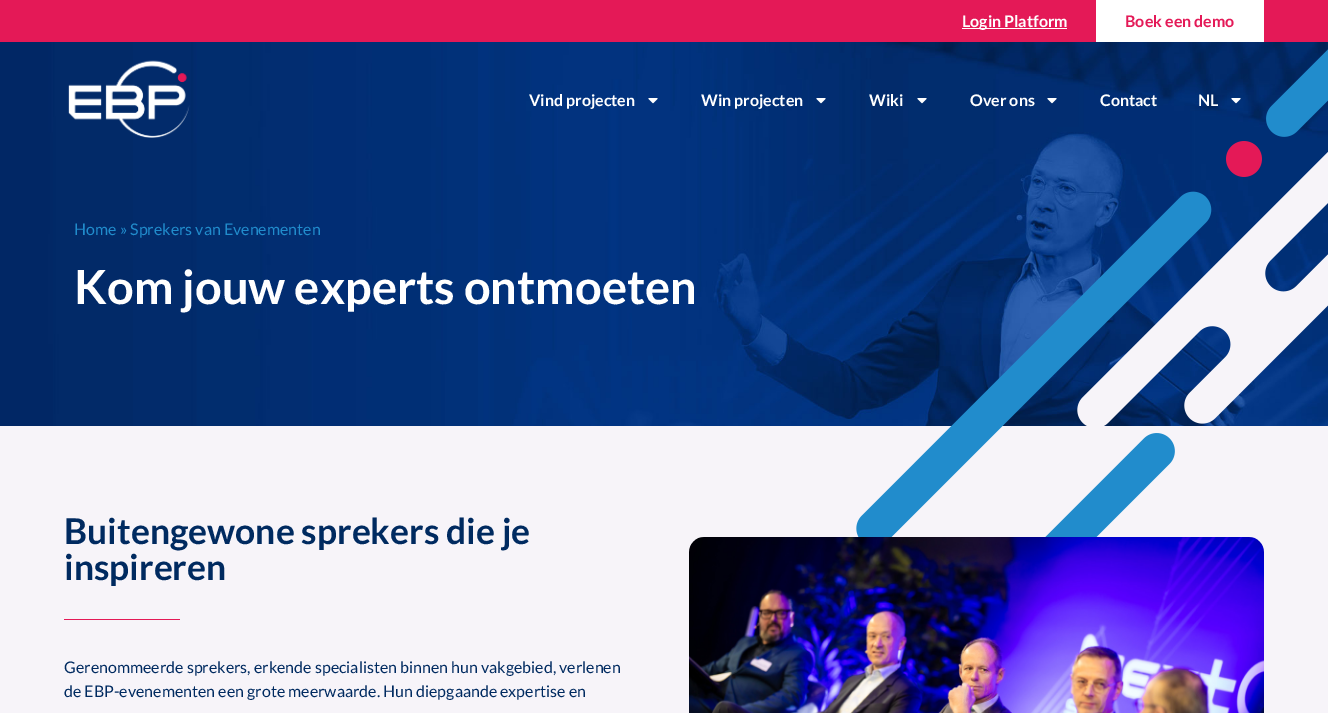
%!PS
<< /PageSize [1328 713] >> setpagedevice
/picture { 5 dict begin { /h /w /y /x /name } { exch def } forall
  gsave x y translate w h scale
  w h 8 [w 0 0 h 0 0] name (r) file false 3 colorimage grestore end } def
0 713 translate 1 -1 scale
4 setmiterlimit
1 setgray
0 0 1328 713 rectfill
0.894 0.098 0.341 setrgbcolor
0 0 1328 42 rectfill
1 setgray
962 28 105 1 rectfill
/Lato-Bold [16 0 0 -16 0 0] selectfont
962 27 moveto (Login Platform) show
1096 0 168 42 rectfill
0.894 0.098 0.341 setrgbcolor
1125 27 moveto (Boek een demo) show
(img7.rgb) 0 42 1328 384 picture
(img1.rgb) 68 60 122 78 picture
1 setgray
529 106 moveto (Vind projecten) show
(img2.rgb) 648 98 10 6 picture
701 106 moveto (Win projecten) show
(img3.rgb) 816 98 10 6 picture
0.969 0.957 0.976 setrgbcolor
0 426 1328 287 rectfill
(img8.rgb) 856 49 472 488 picture
1 setgray
869 106 moveto (Wiki) show
(img4.rgb) 917 98 10 6 picture
970 106 moveto (Over ons) show
(img5.rgb) 1047 98 10 6 picture
1100 106 moveto (Contact) show
1198 106 moveto (NL) show
(img6.rgb) 1231 98 10 6 picture
/Lato-Regular [16 0 0 -16 0 0] selectfont
0.129 0.549 0.8 setrgbcolor
74 235 moveto (Home » Sprekers van Evenementen) show
/Lato-Bold [47 0 0 -47 0 0] selectfont
1 setgray
74 304 moveto (Kom jouw experts ontmoeten) show
/Lato-Bold [35.5 0 0 -35.5 0 0] selectfont
0 0.165 0.376 setrgbcolor
64 544 moveto (Buitengewone sprekers die je) show
64 580 moveto (inspireren) show
0.894 0.098 0.341 setrgbcolor
64 619 116 1 rectfill
/Lato-Regular [16 0 0 -16 0 0] selectfont
0 0.165 0.376 setrgbcolor
64 673 moveto (Gerenommeerde sprekers, erkende specialisten binnen hun vakgebied, verlenen) show
64 697 moveto (de EBP-evenementen een grote meerwaarde. Hun diepgaande expertise en) show
(img9.rgb) 689 537 575 176 picture
showpage
